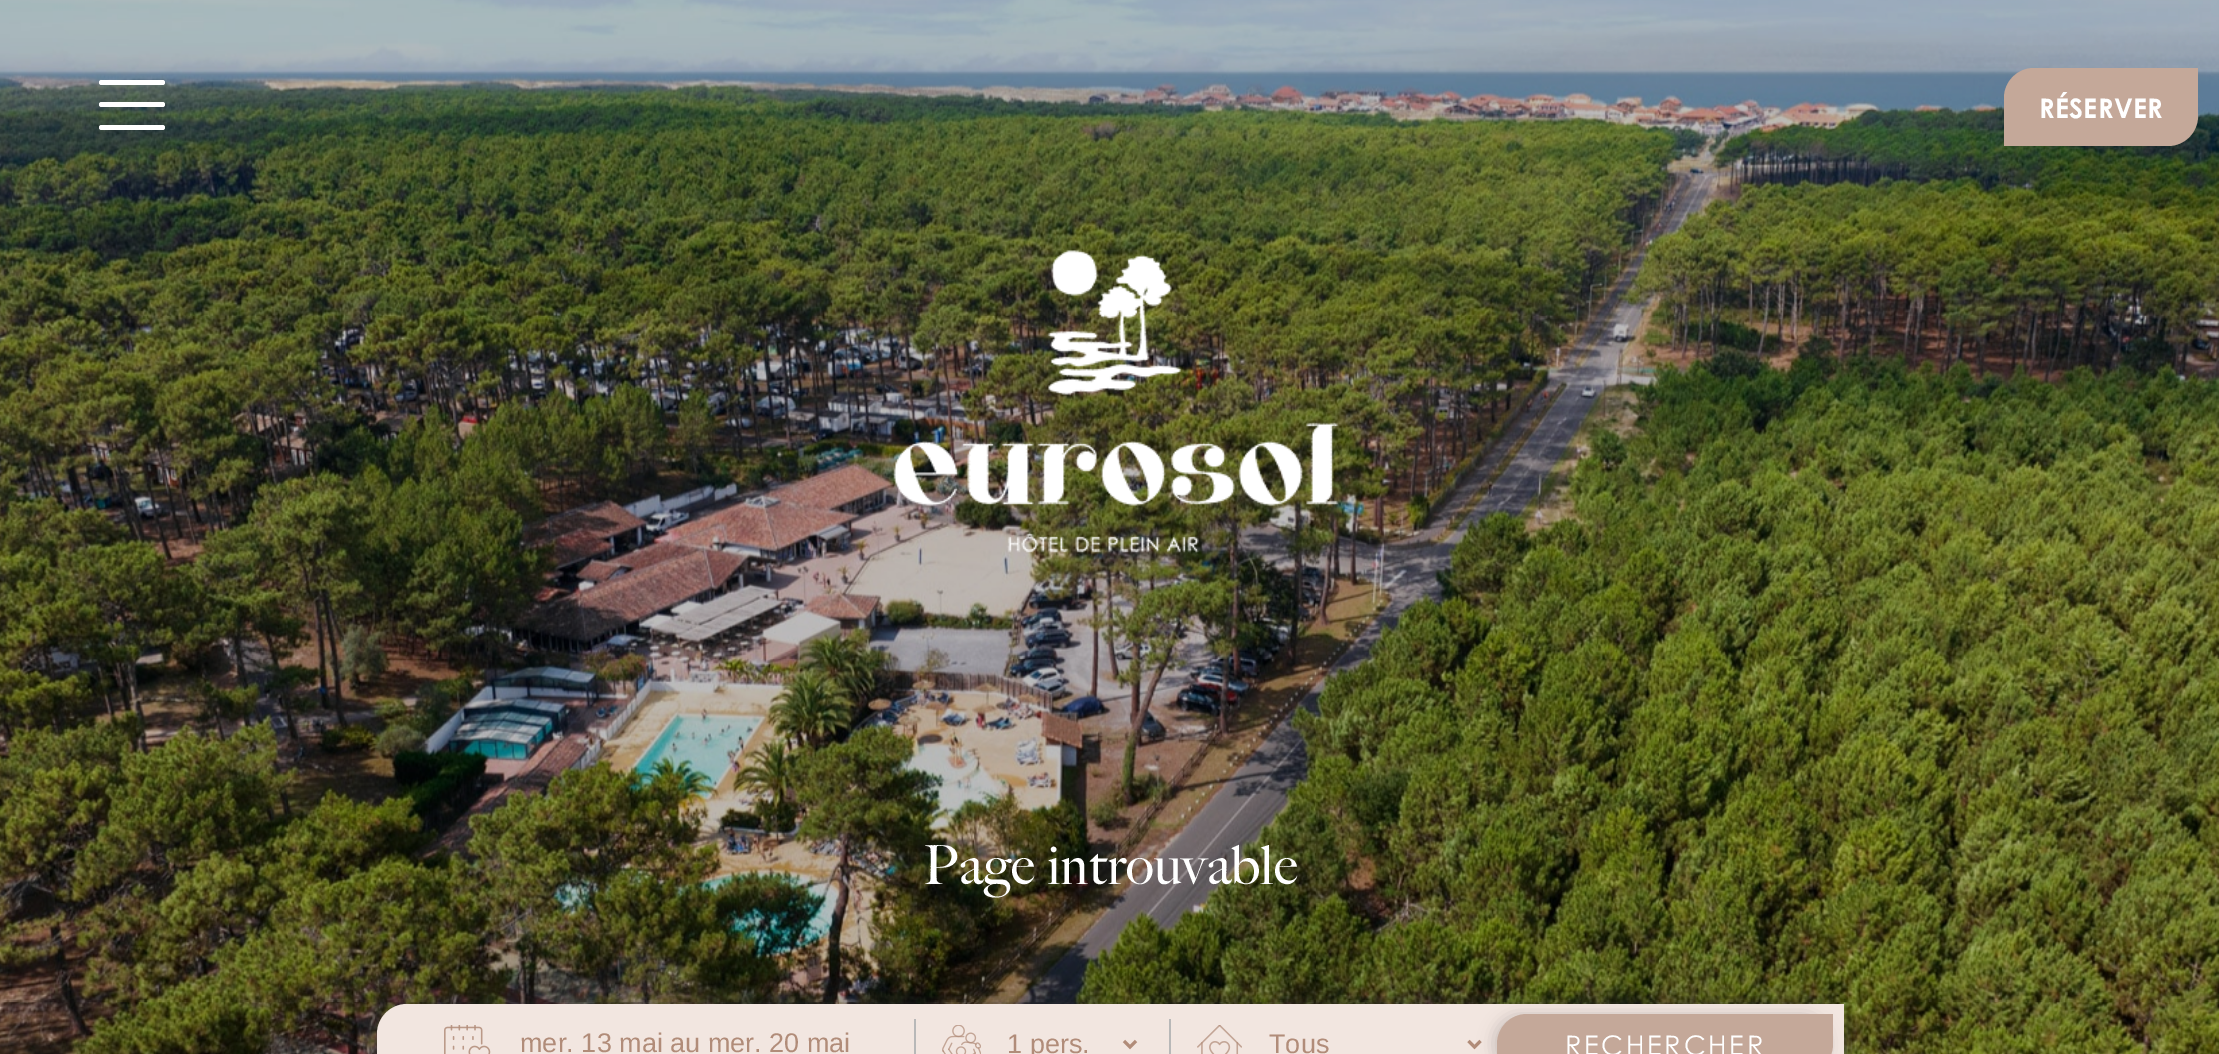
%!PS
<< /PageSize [2219 1054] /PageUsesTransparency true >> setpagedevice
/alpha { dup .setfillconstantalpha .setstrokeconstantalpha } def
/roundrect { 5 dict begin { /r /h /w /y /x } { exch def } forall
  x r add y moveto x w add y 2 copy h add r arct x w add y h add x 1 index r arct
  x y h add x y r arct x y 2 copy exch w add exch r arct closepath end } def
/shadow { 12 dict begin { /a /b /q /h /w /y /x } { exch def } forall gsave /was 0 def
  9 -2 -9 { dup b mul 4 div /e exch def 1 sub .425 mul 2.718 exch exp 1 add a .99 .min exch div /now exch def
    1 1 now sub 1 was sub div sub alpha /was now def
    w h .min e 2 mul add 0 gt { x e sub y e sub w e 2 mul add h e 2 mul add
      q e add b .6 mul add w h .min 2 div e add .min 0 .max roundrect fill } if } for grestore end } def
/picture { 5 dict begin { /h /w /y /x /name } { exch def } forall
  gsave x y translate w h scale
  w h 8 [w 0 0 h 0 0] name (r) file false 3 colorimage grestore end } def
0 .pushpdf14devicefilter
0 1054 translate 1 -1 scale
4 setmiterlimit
1 setgray
0 0 2219 1054 rectfill
(img1.rgb) 0 0 2219 1054 picture
99 80 66 5 2.5 roundrect fill
99 102 66 5 2.5 roundrect fill
99 125 66 5 2.5 roundrect fill
0.769 0.659 0.6 setrgbcolor
newpath 2034 68 moveto 2198 68 lineto 2198 116 lineto 2198 132.5 2184.5 146 2168 146 curveto 2004 146 lineto 2004 98 lineto 2004 81.5 2017.5 68 2034 68 curveto closepath fill
/CenturyGothic-Bold [27 0 0 -27 0 0] selectfont
1 setgray
2039 118 moveto 0.25 0 (RÉSERVER) ashow
(img2.rgb) 892 250 447 304 picture
/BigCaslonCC-Regular [54 0 0 -54 0 0] selectfont
923 884 moveto 0.25 0 (Page introuvable) ashow
0.2 0.188 0.2 setrgbcolor
377 1010 1467 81 30 11 1 shadow
0.949 0.902 0.878 setrgbcolor
newpath 407 1004 moveto 1844 1004 lineto 1844 1054 lineto 1844 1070.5 1830.5 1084 1814 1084 curveto 377 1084 lineto 377 1034 lineto 377 1017.5 390.5 1004 407 1004 curveto closepath fill
(img3.rgb) 444 1025 47 29 picture
/LiberationSans-Regular [27 0 0 -27 0 0] selectfont
0.694 0.549 0.475 setrgbcolor
520 1052 moveto (mer. 13 mai au mer. 20 mai) show
0.722 setgray
914 1019 2 35 rectfill
(img4.rgb) 942 1025 39 29 picture
0.694 0.549 0.475 setrgbcolor
3 setlinewidth
newpath 1124 1041 moveto 1130 1047 lineto 1136 1041 lineto stroke
1007 1053 moveto (1 pers.) show
0.722 setgray
1169 1019 2 35 rectfill
(img5.rgb) 1197 1025 45 29 picture
0.694 0.549 0.475 setrgbcolor
newpath 1468.5 1041 moveto 1474.5 1047 lineto 1480.5 1041 lineto stroke
1269 1053 moveto (Tous) show
0.2 0.188 0.2 setrgbcolor
1493 1014 336 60 30 7.5 0.2 shadow
0.769 0.659 0.6 setrgbcolor
newpath 1527 1014 moveto 1833 1014 lineto 1833 1044 lineto 1833 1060.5 1819.5 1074 1803 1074 curveto 1497 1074 lineto 1497 1044 lineto 1497 1027.5 1510.5 1014 1527 1014 curveto closepath fill
/CenturyGothic-Regular [27 0 0 -27 0 0] selectfont
1 setgray
1565 1055 moveto 2.75 0 (RECHERCHER) ashow
.poppdf14devicefilter showpage
